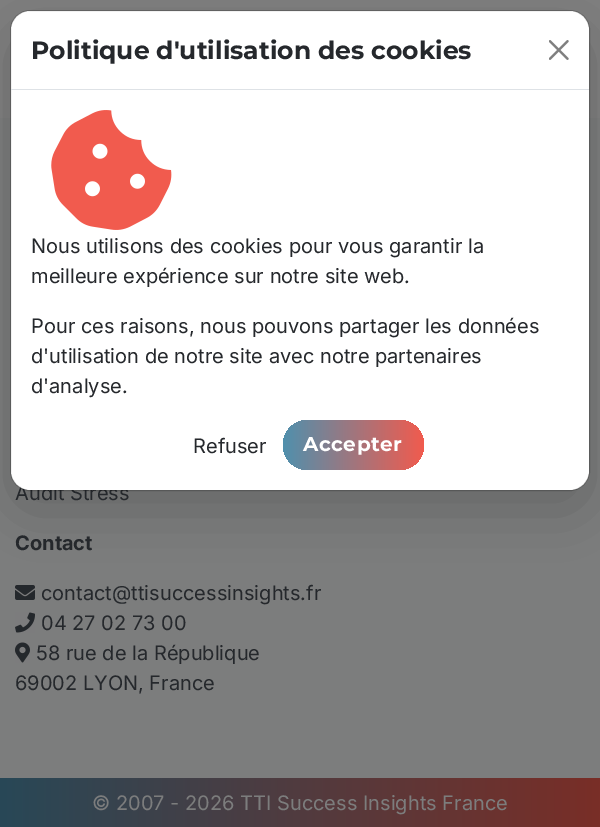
%!PS
<< /PageSize [600 827] /PageUsesTransparency true >> setpagedevice
/alpha { dup .setfillconstantalpha .setstrokeconstantalpha } def
/roundrect { 5 dict begin { /r /h /w /y /x } { exch def } forall
  x r add y moveto x w add y 2 copy h add r arct x w add y h add x 1 index r arct
  x y h add x y r arct x y 2 copy exch w add exch r arct closepath end } def
/shadow { 12 dict begin { /a /b /q /h /w /y /x } { exch def } forall gsave /was 0 def
  9 -2 -9 { dup b mul 4 div /e exch def 1 sub .425 mul 2.718 exch exp 1 add a .99 .min exch div /now exch def
    1 1 now sub 1 was sub div sub alpha /was now def
    w h .min e 2 mul add 0 gt { x e sub y e sub w e 2 mul add h e 2 mul add
      q e add b .6 mul add w h .min 2 div e add .min 0 .max roundrect fill } if } for grestore end } def
/picture { 5 dict begin { /h /w /y /x /name } { exch def } forall
  gsave x y translate w h scale
  w h 8 [w 0 0 h 0 0] name (r) file false 3 colorimage grestore end } def
0 .pushpdf14devicefilter
0 827 translate 1 -1 scale
4 setmiterlimit
0.486 0.49 0.49 setrgbcolor
0 0 600 827 rectfill
0.498 setgray
0 0 600 118 rectfill
(img3.rgb) 15 585 20 15 picture
0 setgray
10 30 580 481 20 30 0.18 shadow
/Inter-Regular [20 0 0 -20 0 0] selectfont
0.145 0.157 0.173 setrgbcolor
15 500 moveto (Audit Stress) show
1 setgray
11 11 578 479 19 roundrect fill
0.2 alpha
0 setgray
10.5 10.5 579 480 19.5 roundrect stroke
1 alpha
0.871 0.886 0.902 setrgbcolor
11 89 578 1 rectfill
/Montserrat-Bold [25 0 0 -25 0 0] selectfont
0.145 0.157 0.173 setrgbcolor
31 59 moveto (Politique d'utilisation des cookies) show
(img1.rgb) 549 40 20 20 picture
(img2.rgb) 51 110 121 120 picture
/Inter-Regular [20 0 0 -20 0 0] selectfont
31 253 moveto (Nous utilisons des cookies pour vous garantir la) show
31 283 moveto (meilleure expérience sur notre site web.) show
31 333 moveto (Pour ces raisons, nous pouvons partager les données) show
31 363 moveto (d'utilisation de notre site avec notre partenaires) show
31 393 moveto (d'analyse.) show
193 453 moveto (Refuser) show
gsave 283 420 141 50 25 roundrect clip newpath
<< /ShadingType 2 /ColorSpace /DeviceRGB /Coords [283 445 424 445] /Extend [true true] /Function << /FunctionType 2 /Domain [0 1] /C0 [0.314 0.565 0.678] /C1 [0.945 0.357 0.306] /N 1 >> >> shfill grestore
/Montserrat-Bold [20 0 0 -20 0 0] selectfont
1 setgray
303 451 moveto 0.5 0 (Accepter) ashow
/Inter-Bold [20 0 0 -20 0 0] selectfont
0.145 0.157 0.173 setrgbcolor
15 550 moveto (Contact) show
/Inter-Regular [20 0 0 -20 0 0] selectfont
41 600 moveto (contact@ttisuccessinsights.fr) show
(img4.rgb) 15 612 20 21 picture
41 630 moveto (04 27 02 73 00) show
(img5.rgb) 15 642 15 21 picture
36 660 moveto (58 rue de la République) show
15 690 moveto (69002 LYON, France) show
gsave newpath 0 778 moveto 600 778 lineto 600 827 lineto 0 827 lineto closepath clip newpath
<< /ShadingType 2 /ColorSpace /DeviceRGB /Coords [0 803 600 803] /Extend [true true] /Function << /FunctionType 2 /Domain [0 1] /C0 [0.157 0.282 0.341] /C1 [0.475 0.18 0.153] /N 1 >> >> shfill grestore
0.486 0.49 0.49 setrgbcolor
92 810 moveto (© 2007 - 2026 TTI Success Insights France) show
.poppdf14devicefilter showpage
